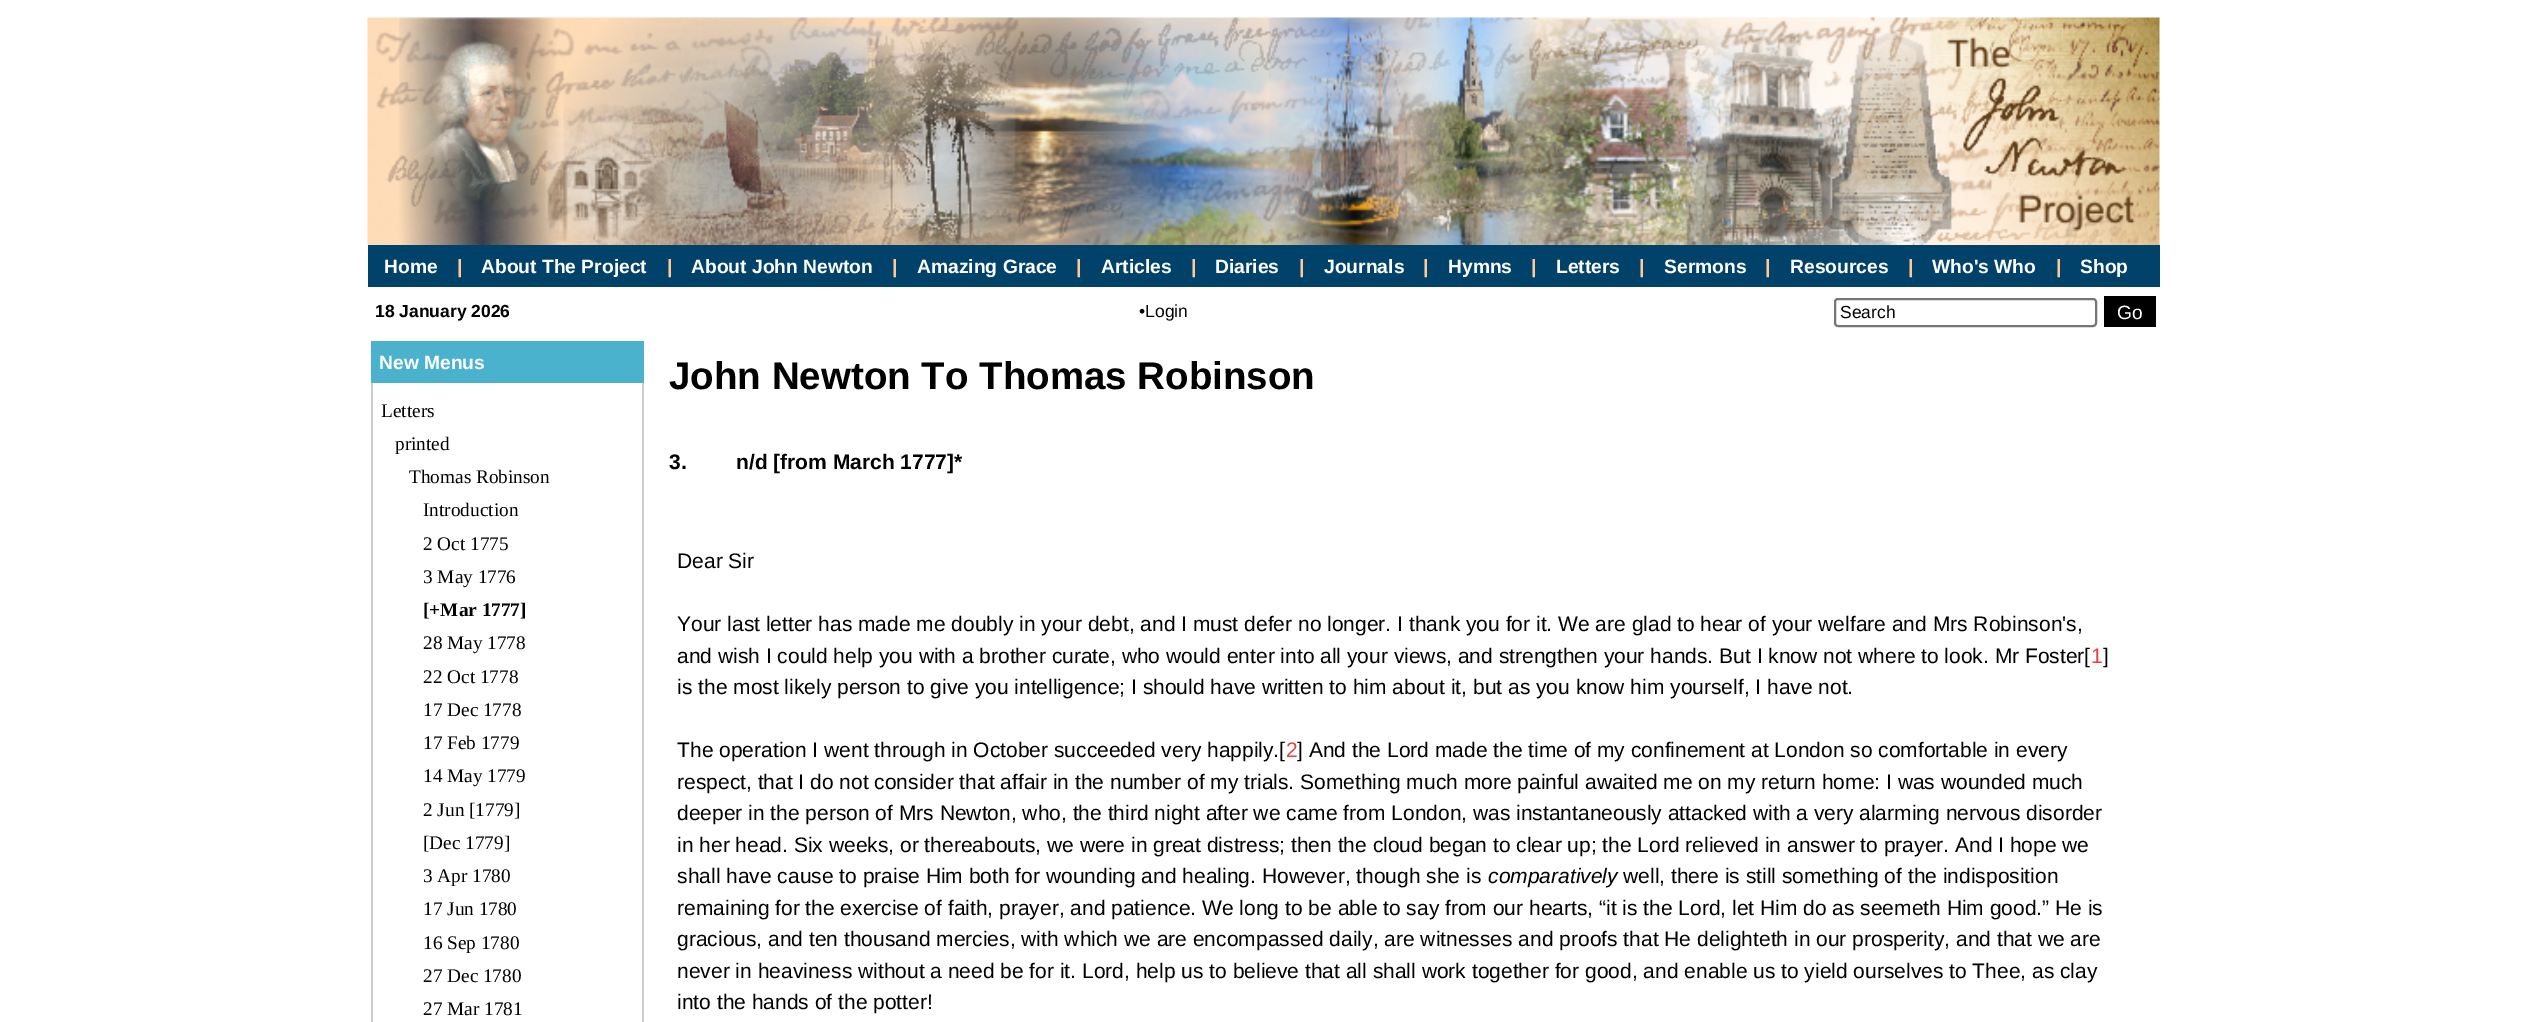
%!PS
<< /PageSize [2524 1022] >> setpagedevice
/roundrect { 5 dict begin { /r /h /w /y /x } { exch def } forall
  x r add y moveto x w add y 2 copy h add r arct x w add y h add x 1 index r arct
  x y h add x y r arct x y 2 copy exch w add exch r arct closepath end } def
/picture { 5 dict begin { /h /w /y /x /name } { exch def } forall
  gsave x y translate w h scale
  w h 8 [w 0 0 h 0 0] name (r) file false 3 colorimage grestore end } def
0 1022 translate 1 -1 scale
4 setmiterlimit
1 setgray
0 0 2524 1022 rectfill
(img1.rgb) 367 17 1793 228 picture
0 0.259 0.412 setrgbcolor
368 245 1792 42 rectfill
/LiberationSans-Bold [19.25 0 0 -19.25 0 0] selectfont
1 setgray
384 273 moveto (Home) show
1 0.792 0.584 setrgbcolor
457 273 moveto (|) show
1 setgray
481 273 moveto (About The Project) show
1 0.792 0.584 setrgbcolor
667 273 moveto (|) show
1 setgray
691 273 moveto (About John Newton) show
1 0.792 0.584 setrgbcolor
892 273 moveto (|) show
1 setgray
917 273 moveto (Amazing Grace) show
1 0.792 0.584 setrgbcolor
1076 273 moveto (|) show
1 setgray
1101 273 moveto (Articles) show
1 0.792 0.584 setrgbcolor
1191 273 moveto (|) show
1 setgray
1215 273 moveto (Diaries) show
1 0.792 0.584 setrgbcolor
1299 273 moveto (|) show
1 setgray
1324 273 moveto (Journals) show
1 0.792 0.584 setrgbcolor
1423 273 moveto (|) show
1 setgray
1448 273 moveto (Hymns) show
1 0.792 0.584 setrgbcolor
1531 273 moveto (|) show
1 setgray
1556 273 moveto (Letters) show
1 0.792 0.584 setrgbcolor
1639 273 moveto (|) show
1 setgray
1664 273 moveto (Sermons) show
1 0.792 0.584 setrgbcolor
1765 273 moveto (|) show
1 setgray
1790 273 moveto (Resources) show
1 0.792 0.584 setrgbcolor
1908 273 moveto (|) show
1 setgray
1932 273 moveto (Who's Who) show
1 0.792 0.584 setrgbcolor
2056 273 moveto (|) show
1 setgray
2080 273 moveto (Shop) show
/LiberationSans-Bold [17.5 0 0 -17.5 0 0] selectfont
0 setgray
375 317 moveto (18 January 2026) show
/LiberationSans-Regular [17.5 0 0 -17.5 0 0] selectfont
1139 317 moveto (•Login) show
0.463 setgray
2 setlinewidth
1835 299 261 27 3 roundrect stroke
0 setgray
1840 318 moveto (Search) show
2104 296 52 31 rectfill
/LiberationSans-Regular [19.25 0 0 -19.25 0 0] selectfont
1 setgray
2117 319 moveto (Go) show
0.294 0.698 0.804 setrgbcolor
371 341 273 42 rectfill
/LiberationSans-Bold [19.25 0 0 -19.25 0 0] selectfont
1 setgray
379 369 moveto (New Menus) show
0.8 setgray
642 383 2 639 rectfill
371 383 2 639 rectfill
/LiberationSerif-Regular [19.25 0 0 -19.25 0 0] selectfont
0 setgray
381 417 moveto (Letters) show
395 450 moveto (printed) show
409 483 moveto (Thomas Robinson) show
423 516 moveto (Introduction) show
423 550 moveto (2 Oct 1775) show
423 583 moveto (3 May 1776) show
/LiberationSerif-Bold [19.25 0 0 -19.25 0 0] selectfont
423 616 moveto ([+Mar 1777]) show
/LiberationSerif-Regular [19.25 0 0 -19.25 0 0] selectfont
423 649 moveto (28 May 1778) show
423 683 moveto (22 Oct 1778) show
423 716 moveto (17 Dec 1778) show
423 749 moveto (17 Feb 1779) show
423 782 moveto (14 May 1779) show
423 816 moveto (2 Jun [1779]) show
423 849 moveto ([Dec 1779]) show
423 882 moveto (3 Apr 1780) show
423 915 moveto (17 Jun 1780) show
423 949 moveto (16 Sep 1780) show
423 982 moveto (27 Dec 1780) show
423 1015 moveto (27 Mar 1781) show
/LiberationSans-Bold [38.5 0 0 -38.5 0 0] selectfont
669 389 moveto (John Newton To Thomas Robinson) show
/LiberationSans-Bold [21 0 0 -21 0 0] selectfont
669 469 moveto (3.) show
736 469 moveto (n/d [from March 1777]*) show
/LiberationSans-Regular [21 0 0 -21 0 0] selectfont
677 568 moveto (Dear Sir) show
677 631 moveto (Your last letter has made me doubly in your debt, and I must defer no longer. I thank you for it. We are glad to hear of your welfare and Mrs Robinson's,) show
677 663 moveto (and wish I could help you with a brother curate, who would enter into all your views, and strengthen your hands. But I know not where to look. Mr Foster[) show
0.902 0.267 0.267 setrgbcolor
2091 663 moveto (1) show
0 setgray
2103 663 moveto (]) show
677 694 moveto (is the most likely person to give you intelligence; I should have written to him about it, but as you know him yourself, I have not.) show
677 757 moveto (The operation I went through in October succeeded very happily.[) show
0.902 0.267 0.267 setrgbcolor
1286 757 moveto (2) show
0 setgray
1297 757 moveto (] And the Lord made the time of my confinement at London so comfortable in every) show
677 789 moveto (respect, that I do not consider that affair in the number of my trials. Something much more painful awaited me on my return home: I was wounded much) show
677 820 moveto (deeper in the person of Mrs Newton, who, the third night after we came from London, was instantaneously attacked with a very alarming nervous disorder) show
677 852 moveto (in her head. Six weeks, or thereabouts, we were in great distress; then the cloud began to clear up; the Lord relieved in answer to prayer. And I hope we) show
677 883 moveto (shall have cause to praise Him both for wounding and healing. However, though she is) show
/LiberationSans-Italic [21 0 0 -21 0 0] selectfont
1488 883 moveto (comparatively) show
/LiberationSans-Regular [21 0 0 -21 0 0] selectfont
1623 883 moveto (well, there is still something of the indisposition) show
677 915 moveto (remaining for the exercise of faith, prayer, and patience. We long to be able to say from our hearts, “it is the Lord, let Him do as seemeth Him good.” He is) show
677 946 moveto (gracious, and ten thousand mercies, with which we are encompassed daily, are witnesses and proofs that He delighteth in our prosperity, and that we are) show
677 978 moveto (never in heaviness without a need be for it. Lord, help us to believe that all shall work together for good, and enable us to yield ourselves to Thee, as clay) show
677 1009 moveto (into the hands of the potter!) show
showpage
